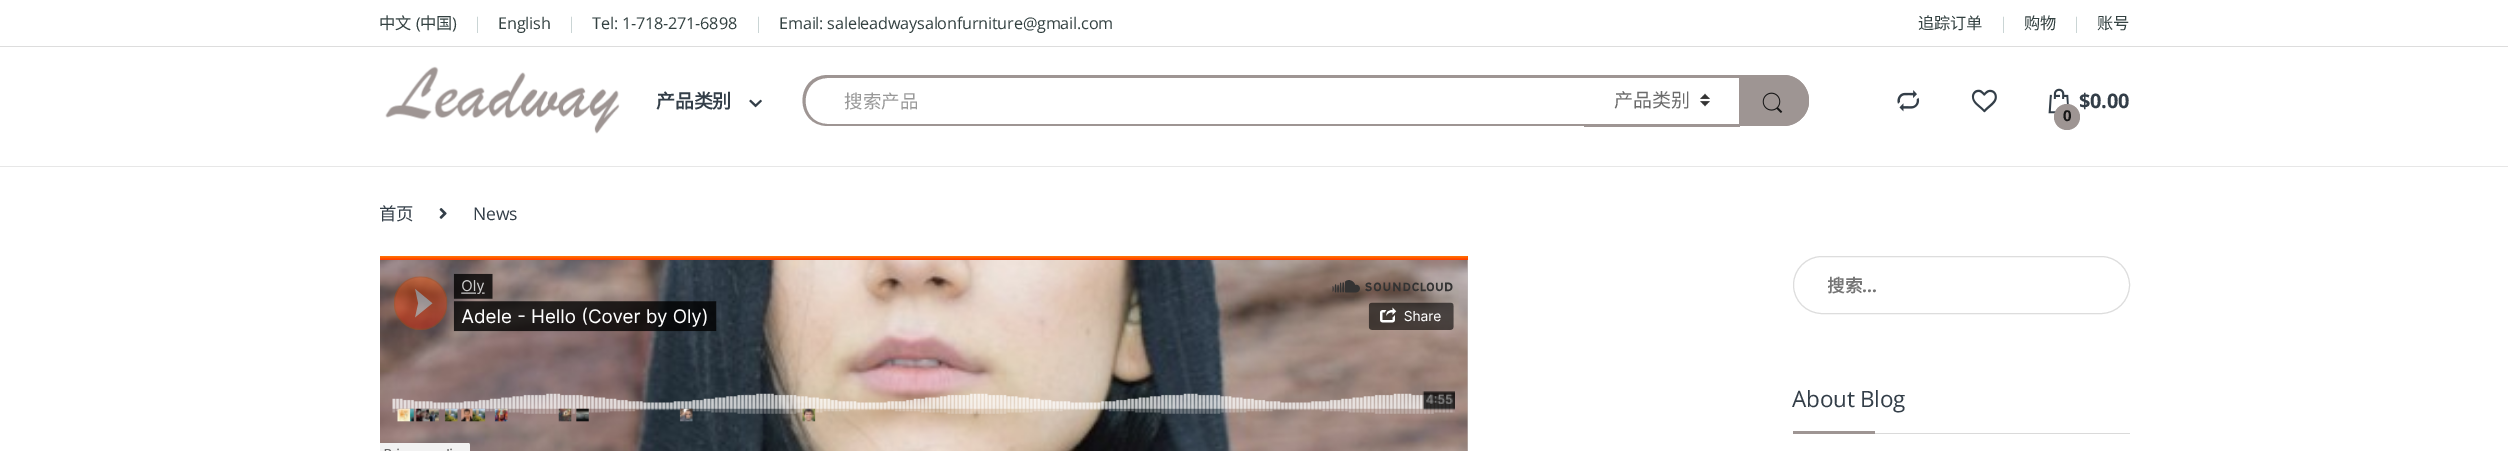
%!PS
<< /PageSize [2508 451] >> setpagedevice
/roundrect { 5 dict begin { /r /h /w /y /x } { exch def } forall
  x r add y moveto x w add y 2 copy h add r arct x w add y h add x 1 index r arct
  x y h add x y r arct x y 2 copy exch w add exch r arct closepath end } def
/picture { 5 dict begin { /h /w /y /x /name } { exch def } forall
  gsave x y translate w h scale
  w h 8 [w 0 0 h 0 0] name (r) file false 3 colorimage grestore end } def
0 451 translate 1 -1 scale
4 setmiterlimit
1 setgray
0 0 2508 451 rectfill
0.867 setgray
0 46 2508 1 rectfill
/NotoSansCJKSC-Regular [16.25 0 0 -16.25 0 0] selectfont
0.2 0.255 0.255 setrgbcolor
379 29 moveto -0.2 0 (中文) ashow
/OpenSans-Regular [16.25 0 0 -16.25 0 0] selectfont
416 29 moveto -0.2 0 (\() ashow
/NotoSansCJKSC-Regular [16.25 0 0 -16.25 0 0] selectfont
420 29 moveto -0.2 0 (中国) ashow
/OpenSans-Regular [16.25 0 0 -16.25 0 0] selectfont
452 29 moveto -0.2 0 (\)) ashow
0.792 0.835 0.835 setrgbcolor
473 29 moveto -0.2 0 (|) ashow
0.2 0.255 0.255 setrgbcolor
498 29 moveto -0.2 0 (English) ashow
0.792 0.835 0.835 setrgbcolor
567 29 moveto -0.2 0 (|) ashow
0.2 0.255 0.255 setrgbcolor
592 29 moveto -0.2 0 (Tel: 1-718-271-6898) ashow
0.792 0.835 0.835 setrgbcolor
754 29 moveto -0.2 0 (|) ashow
0.2 0.255 0.255 setrgbcolor
779 29 moveto -0.2 0 (Email: saleleadwaysalonfurniture@gmail.com) ashow
/NotoSansCJKSC-Regular [16.25 0 0 -16.25 0 0] selectfont
1918 29 moveto -0.2 0 (追踪订单) ashow
/OpenSans-Regular [16.25 0 0 -16.25 0 0] selectfont
0.792 0.835 0.835 setrgbcolor
1999 29 moveto -0.2 0 (|) ashow
/NotoSansCJKSC-Regular [16.25 0 0 -16.25 0 0] selectfont
0.2 0.255 0.255 setrgbcolor
2024 29 moveto -0.2 0 (购物) ashow
/OpenSans-Regular [16.25 0 0 -16.25 0 0] selectfont
0.792 0.835 0.835 setrgbcolor
2072 29 moveto -0.2 0 (|) ashow
/NotoSansCJKSC-Regular [16.25 0 0 -16.25 0 0] selectfont
0.2 0.255 0.255 setrgbcolor
2097 29 moveto -0.2 0 (账号) ashow
0.906 setgray
0 166 2508 1 rectfill
(img1.rgb) 385 66 235 68 picture
/NotoSansCJKSC-Bold [19 0 0 -19 0 0] selectfont
0.2 0.243 0.282 setrgbcolor
656 108 moveto -0.2 0 (产品类别) ashow
(img2.rgb) 749 99 13 9 picture
0.62 0.584 0.576 setrgbcolor
1584 75 156 3 rectfill
1584 124 156 3 rectfill
1 setgray
newpath 828.5 75 moveto 1585 75 lineto 1585 126 lineto 828.5 126 lineto 814.5 126 803 114.5 803 100.5 curveto 803 86.5 814.5 75 828.5 75 curveto closepath fill
0.62 0.584 0.576 setrgbcolor
newpath 828 75 moveto 1585 75 lineto 1585 126 lineto 828 126 lineto 794 126 794 75 828 75 curveto closepath 828 78 moveto 1585 78 lineto 1585 124 lineto 828 124 lineto 798 124 798 78 828 78 curveto closepath eofill
/NotoSansCJKSC-Regular [18.5 0 0 -18.5 0 0] selectfont
0.6 setgray
844 108 moveto (搜索产品) show
(img3.rgb) 1700 93 10 14 picture
/NotoSansCJKSC-Regular [19 0 0 -19 0 0] selectfont
0.42 setgray
1614 107 moveto (产品类别) show
0.62 0.584 0.576 setrgbcolor
newpath 1739 75 moveto 1783.5 75 lineto 1797.5 75 1809 86.5 1809 100.5 curveto 1809 114.5 1797.5 126 1783.5 126 curveto 1739 126 lineto closepath fill
newpath 1739 75 moveto 1783 75 lineto 1797 75 1809 86 1809 101 curveto 1809 115 1797 126 1783 126 curveto 1739 126 lineto closepath 1739 78 moveto 1783 78 lineto 1796 78 1806 88 1806 101 curveto 1806 113 1796 124 1783 124 curveto 1739 124 lineto closepath eofill
(img4.rgb) 1762 92 21 21 picture
(img5.rgb) 1897 90 23 22 picture
(img6.rgb) 1971 89 26 24 picture
(img7.rgb) 2048 88 21 26 picture
/OpenSans-Bold [20 0 0 -20 0 0] selectfont
0.2 0.243 0.282 setrgbcolor
2079 108 moveto -0.2 0 ($0.00) ashow
0.62 0.584 0.576 setrgbcolor
newpath 2067 117 13 0 360 arc closepath fill
/OpenSans-Bold [15 0 0 -15 0 0] selectfont
0.086 setgray
2063 121 moveto -0.2 0 (0) ashow
/NotoSansCJKSC-Regular [17.5 0 0 -17.5 0 0] selectfont
0.2 0.243 0.282 setrgbcolor
379 220 moveto -0.2 0 (首页) ashow
(img8.rgb) 439 208 8 11 picture
/OpenSans-Regular [17.5 0 0 -17.5 0 0] selectfont
473 220 moveto -0.2 0 (News) ashow
(img9.rgb) 380 256 1088 195 picture
0.867 setgray
1793.5 256.5 336 57 28.5 roundrect stroke
gsave
1828 271 262 25 rectclip
/NotoSansCJKSC-Bold [17.5 0 0 -17.5 0 0] selectfont
0.459 setgray
1827 292 moveto (搜索) show
grestore
/OpenSans-Bold [17.5 0 0 -17.5 0 0] selectfont
0.459 setgray
1862 292 moveto (…) show
0.855 setgray
1875 433 255 1 rectfill
/OpenSans-Regular [22.5 0 0 -22.5 0 0] selectfont
0.2 0.243 0.282 setrgbcolor
1792 407 moveto -0.2 0 (About Blog) ashow
0.62 0.584 0.576 setrgbcolor
1793 431 82 3 rectfill
showpage
